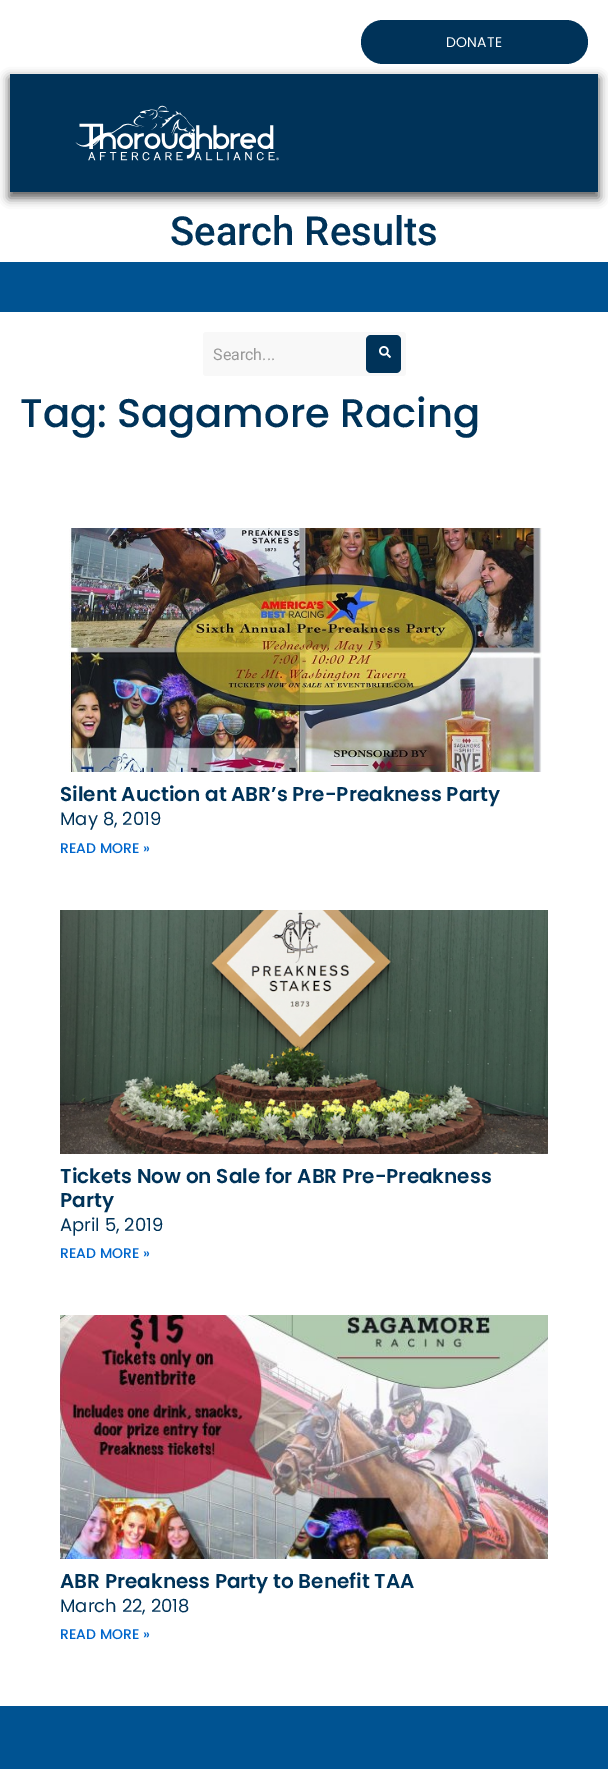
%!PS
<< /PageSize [608 1769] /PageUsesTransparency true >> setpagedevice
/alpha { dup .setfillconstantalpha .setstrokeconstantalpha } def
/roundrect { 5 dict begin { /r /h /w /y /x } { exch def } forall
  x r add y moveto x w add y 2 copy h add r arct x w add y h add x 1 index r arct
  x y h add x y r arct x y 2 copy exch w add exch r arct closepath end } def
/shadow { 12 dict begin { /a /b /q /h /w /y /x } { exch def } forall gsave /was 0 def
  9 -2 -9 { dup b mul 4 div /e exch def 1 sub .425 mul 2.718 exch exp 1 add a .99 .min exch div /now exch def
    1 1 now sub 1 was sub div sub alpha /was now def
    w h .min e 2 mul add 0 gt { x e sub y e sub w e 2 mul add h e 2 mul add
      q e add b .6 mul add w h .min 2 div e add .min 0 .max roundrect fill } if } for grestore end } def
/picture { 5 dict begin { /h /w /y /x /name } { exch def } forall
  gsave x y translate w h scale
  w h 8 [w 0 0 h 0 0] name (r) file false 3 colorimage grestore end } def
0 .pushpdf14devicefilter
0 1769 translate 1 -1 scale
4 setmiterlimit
1 setgray
0 0 608 1769 rectfill
0 0.2 0.349 setrgbcolor
361 20 227 44 22 roundrect fill
/Poppins-Regular [14 0 0 -14 0 0] selectfont
1 setgray
446 47 moveto 0.25 0 (DONATE) ashow
0 setgray
9 78 590 120 0 5 0.63 shadow
0 0.2 0.349 setrgbcolor
10 74 588 118 rectfill
(img1.rgb) 75 105 204 56 picture
/Roboto-Medium [40 0 0 -40 0 0] selectfont
170 245 moveto (Search Results) show
0 0.325 0.573 setrgbcolor
0 262 608 1507 rectfill
1 setgray
0 312 608 1394 rectfill
0.973 setgray
203 332 203 44 3 roundrect fill
/Roboto-Regular [16 0 0 -16 0 0] selectfont
0.6 setgray
213 360 moveto (Search...) show
0 0.2 0.349 setrgbcolor
366 335 35 38 5 roundrect fill
(img2.rgb) 379 346 12 12 picture
/Poppins-Medium [40 0 0 -40 0 0] selectfont
20 427 moveto (Tag: Sagamore Racing) show
(img3.rgb) 69 528 473 244 picture
/Poppins-SemiBold [20 0 0 -20 0 0] selectfont
60 801 moveto (Silent Auction at ABR’s Pre-Preakness Party) show
/Poppins-Regular [18 0 0 -18 0 0] selectfont
60 825 moveto (May 8, 2019) show
/Poppins-Medium [14 0 0 -14 0 0] selectfont
0 0.4 0.8 setrgbcolor
60 853 moveto (READ MORE ») show
(img4.rgb) 60 910 488 244 picture
/Poppins-SemiBold [20 0 0 -20 0 0] selectfont
0 0.2 0.349 setrgbcolor
60 1183 moveto (Tickets Now on Sale for ABR Pre-Preakness) show
60 1207 moveto (Party) show
/Poppins-Regular [18 0 0 -18 0 0] selectfont
60 1231 moveto (April 5, 2019) show
/Poppins-Medium [14 0 0 -14 0 0] selectfont
0 0.4 0.8 setrgbcolor
60 1258 moveto (READ MORE ») show
(img5.rgb) 60 1315 488 244 picture
/Poppins-SemiBold [20 0 0 -20 0 0] selectfont
0 0.2 0.349 setrgbcolor
60 1588 moveto (ABR Preakness Party to Benefit TAA) show
/Poppins-Regular [18 0 0 -18 0 0] selectfont
60 1612 moveto (March 22, 2018) show
/Poppins-Medium [14 0 0 -14 0 0] selectfont
0 0.4 0.8 setrgbcolor
60 1639 moveto (READ MORE ») show
.poppdf14devicefilter showpage
